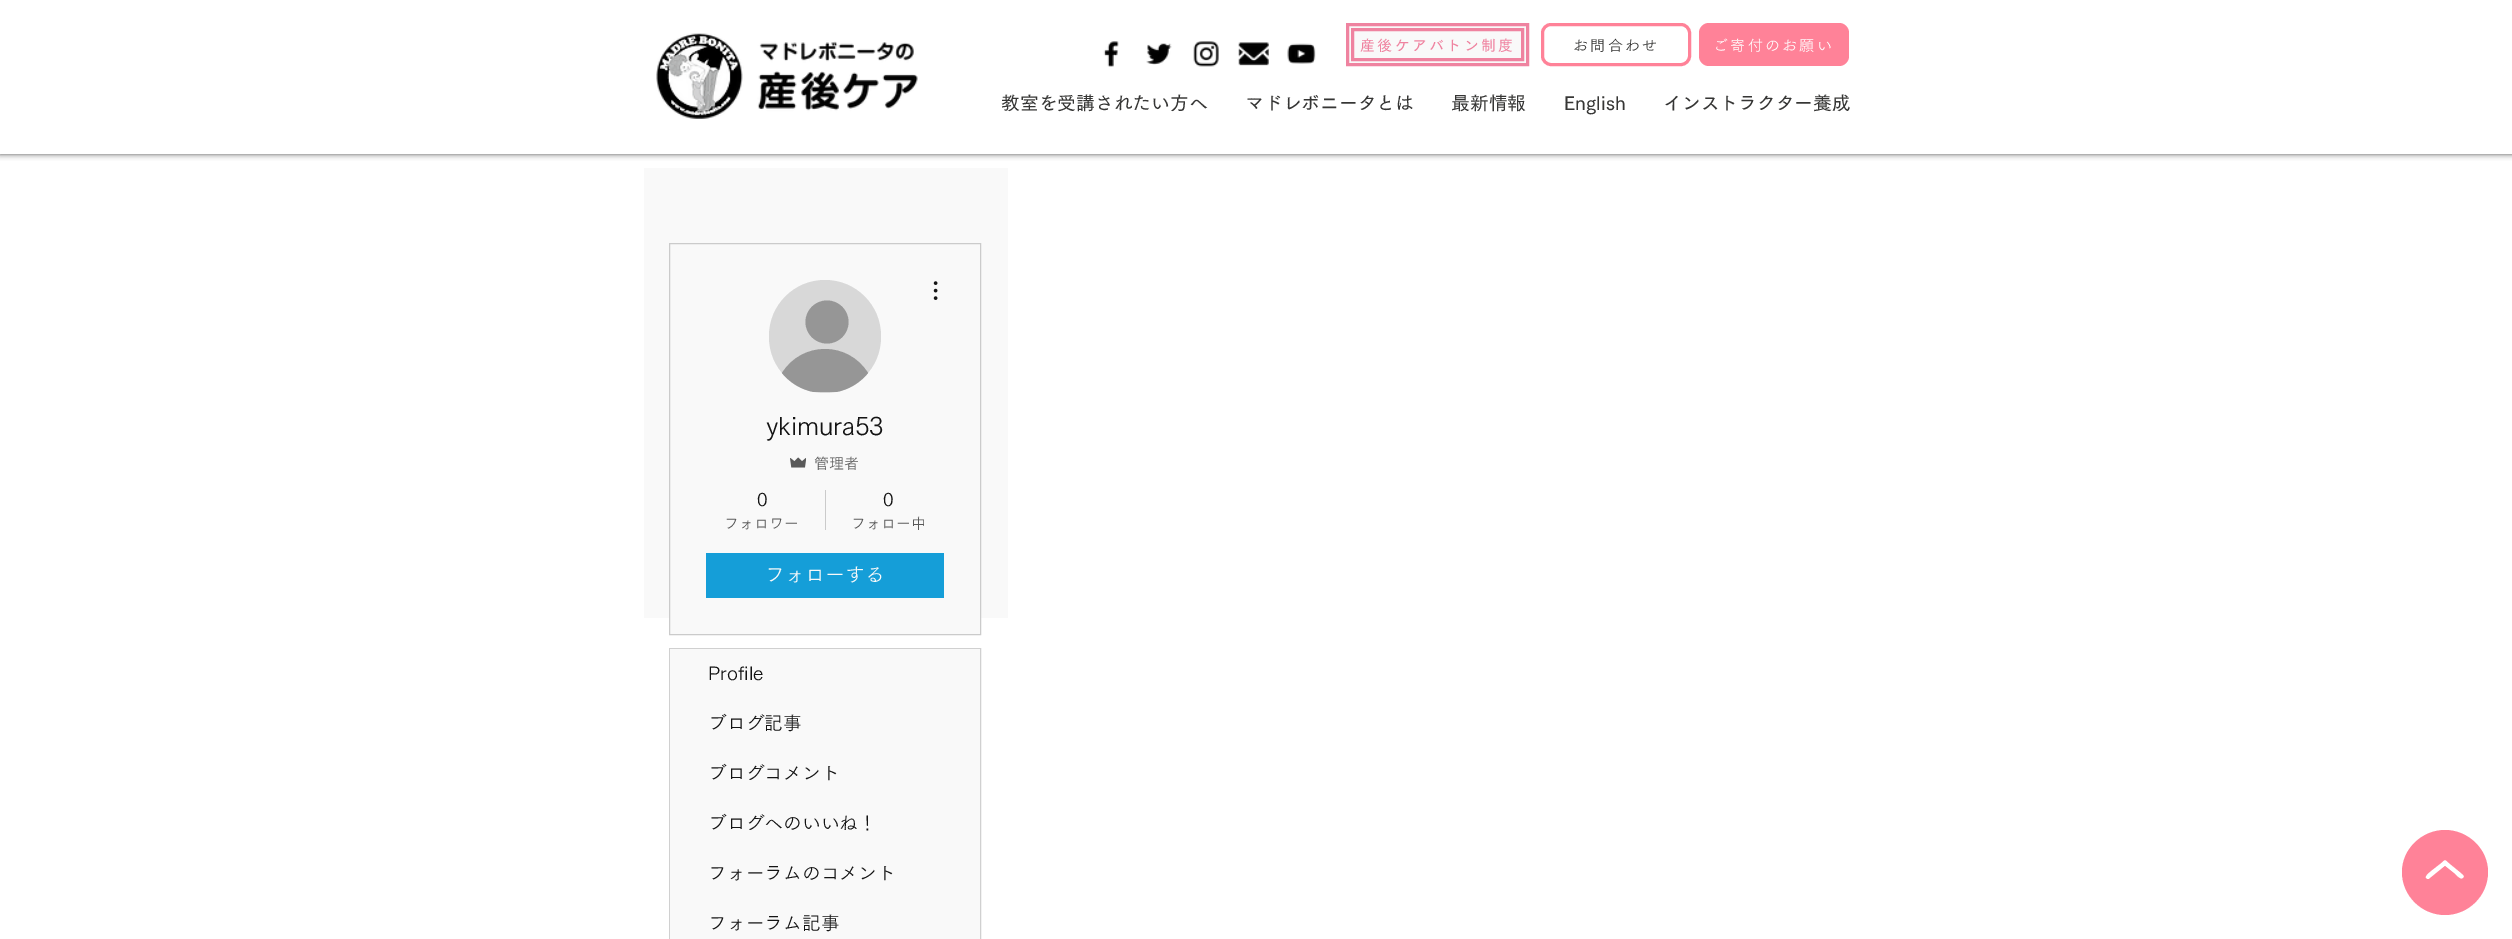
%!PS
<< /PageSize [2512 939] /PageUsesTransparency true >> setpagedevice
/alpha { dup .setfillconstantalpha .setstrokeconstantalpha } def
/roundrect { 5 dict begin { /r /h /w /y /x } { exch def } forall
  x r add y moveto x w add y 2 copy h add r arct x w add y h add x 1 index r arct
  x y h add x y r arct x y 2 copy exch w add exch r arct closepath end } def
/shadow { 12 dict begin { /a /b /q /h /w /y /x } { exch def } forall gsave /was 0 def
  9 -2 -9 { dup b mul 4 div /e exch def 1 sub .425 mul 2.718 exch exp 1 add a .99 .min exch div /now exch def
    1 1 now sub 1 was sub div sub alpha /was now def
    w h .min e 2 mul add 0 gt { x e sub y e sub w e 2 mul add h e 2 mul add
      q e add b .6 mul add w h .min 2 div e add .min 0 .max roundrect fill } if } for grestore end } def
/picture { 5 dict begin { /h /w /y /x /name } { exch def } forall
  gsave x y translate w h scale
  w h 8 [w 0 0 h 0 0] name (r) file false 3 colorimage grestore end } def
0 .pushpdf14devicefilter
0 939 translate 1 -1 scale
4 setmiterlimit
1 setgray
0 0 2512 939 rectfill
0 setgray
0 0 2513 154 0 3 0.7 shadow
1 setgray
0 0 2512 154 rectfill
(img1.rgb) 656 33 262 86 picture
(img2.rgb) 1103 41 16 26 picture
(img3.rgb) 1146 43 26 22 picture
(img4.rgb) 1193 41 26 26 picture
(img5.rgb) 1238 42 31 24 picture
(img6.rgb) 1287 43 29 21 picture
0.976 setgray
newpath 1347.5 24.5 moveto 1527.5 24.5 lineto 1527.5 64.5 lineto 1347.5 64.5 lineto closepath gsave fill grestore
0.937 0.514 0.627 setrgbcolor
3 setlinewidth
stroke
1352.5 29.5 170 30 rectstroke
/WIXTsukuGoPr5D-SemiBold [15 0 0 -15 0 0] selectfont
1360 51 moveto 2.25 0 (産後ケアバトン制度) ashow
1 0.51 0.596 setrgbcolor
1542.5 24.5 147 40 8.5 roundrect stroke
/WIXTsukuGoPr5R-Regular [15 0 0 -15 0 0] selectfont
0.212 0.212 0.208 setrgbcolor
1573 51 moveto 2.25 0 (お問合わせ) ashow
1 0.51 0.596 setrgbcolor
1699 23 150 43 10 roundrect fill
1 setgray
1713 51 moveto 2.25 0 (ご寄付のお願い) ashow
/WIXTsukuGoPr5D-SemiBold [18.75 0 0 -18.75 0 0] selectfont
0.212 0.212 0.208 setrgbcolor
1001 110 moveto (教室を受講されたい方へ) show
1245 110 moveto (マドレボニータとは) show
1451 110 moveto (最新情報) show
1564 110 moveto (English) show
1663 110 moveto (インストラクター養成) show
0.976 setgray
644 168 364 450 rectfill
670 618 310 16 rectfill
0.796 setgray
1 setlinewidth
669.5 243.5 311 391 rectstroke
0.847 setgray
769 280 112 113 56 roundrect fill
0.588 setgray
newpath 827 322 21.5 0 360 arc closepath fill
newpath 814 392 moveto 802 390 790 383 782 373 curveto 802 341 848 341 868 373 curveto 860 383 848 390 836 392 curveto closepath fill
(img7.rgb) 933 281 5 19 picture
/WIXTsukuGoPr5R-Regular [25 0 0 -25 0 0] selectfont
0.078 setgray
766 435 moveto (ykimura53) show
(img8.rgb) 790 457 16 11 picture
/WIXTsukuGoPr5R-Regular [15 0 0 -15 0 0] selectfont
0.349 setgray
814 469 moveto (管理者) show
/WIXTsukuGoPr5R-Regular [18 0 0 -18 0 0] selectfont
0.078 setgray
757 506 moveto (0) show
/WIXTsukuGoPr5R-Regular [15 0 0 -15 0 0] selectfont
0.349 setgray
724 529 moveto (フォロワー) show
0.796 setgray
825 490 1 40 rectfill
/WIXTsukuGoPr5R-Regular [18 0 0 -18 0 0] selectfont
0.078 setgray
883 506 moveto (0) show
/WIXTsukuGoPr5R-Regular [15 0 0 -15 0 0] selectfont
0.349 setgray
851 529 moveto (フォロー中) show
0.082 0.62 0.847 setrgbcolor
706 553 238 45 rectfill
/WIXTsukuGoPr5R-Regular [20 0 0 -20 0 0] selectfont
0.976 setgray
765 582 moveto (フォローする) show
0.816 setgray
669.5 648.5 311 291 rectstroke
0.976 setgray
670 649 310 290 rectfill
/WIXTsukuGoPr5R-Regular [18.75 0 0 -18.75 0 0] selectfont
0.078 setgray
708 680 moveto (Profile) show
708 730 moveto (ブログ記事) show
708 780 moveto (ブログコメント) show
708 830 moveto (ブログへのいいね！) show
708 880 moveto (フォーラムのコメント) show
708 930 moveto (フォーラム記事) show
1 0.51 0.596 setrgbcolor
newpath 2445 830 moveto 2422 830 2402 849 2402 872 curveto 2402 896 2422 915 2445 915 curveto 2468 915 2488 896 2488 872 curveto 2488 849 2468 830 2445 830 curveto closepath 2463 878 moveto 2461 881 2456 875 2455 874 curveto 2445 866 lineto 2429 879 lineto 2427 879 lineto 2422 877 2431 871 2432 870 curveto 2441 863 lineto 2445 859 2445 859 2449 863 curveto 2460 872 lineto 2462 874 2466 876 2463 878 curveto closepath fill
.poppdf14devicefilter showpage
